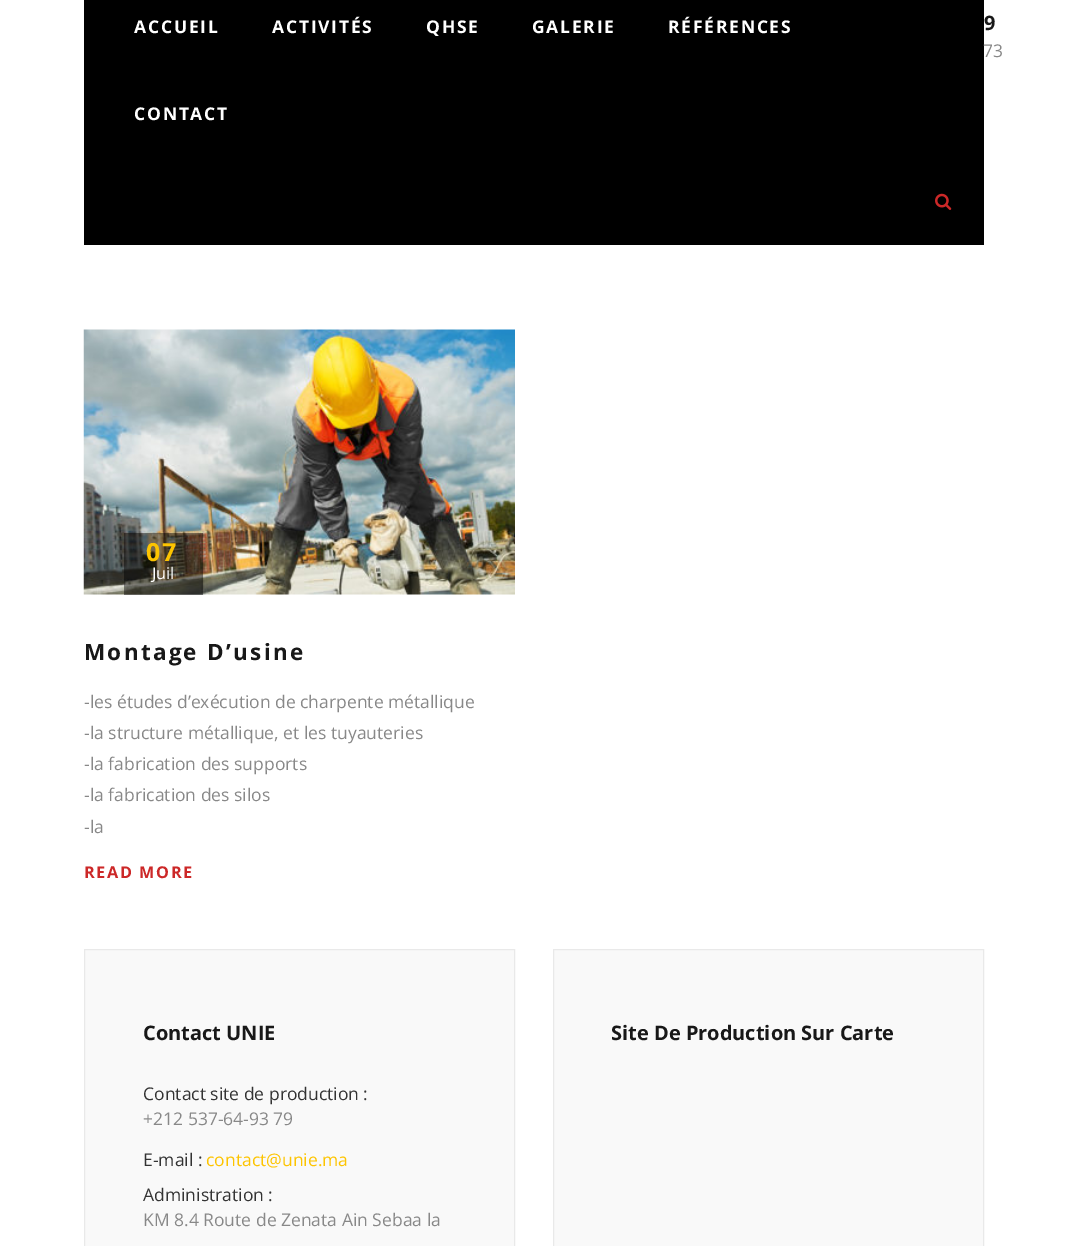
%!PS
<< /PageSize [1067 1246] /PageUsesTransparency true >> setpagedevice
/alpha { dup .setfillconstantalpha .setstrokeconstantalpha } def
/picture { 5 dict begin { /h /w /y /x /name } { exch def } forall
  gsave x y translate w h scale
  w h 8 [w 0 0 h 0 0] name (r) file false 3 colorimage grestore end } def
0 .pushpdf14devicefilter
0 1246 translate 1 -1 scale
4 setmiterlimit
1 setgray
0 0 1067 1246 rectfill
0 setgray
84 0 900 245 rectfill
/OpenSans-Bold [17.5 0 0 -17.5 0 0] selectfont
1 setgray
134 33 moveto 1.75 0 (ACCUEIL) ashow
272 33 moveto 1.75 0 (ACTIVITÉS) ashow
426 33 moveto 1.75 0 (QHSE) ashow
532 33 moveto 1.75 0 (GALERIE) ashow
668 33 moveto 1.75 0 (RÉFÉRENCES) ashow
134 120 moveto 1.75 0 (CONTACT) ashow
(img1.rgb) 935 193 17 17 picture
/OpenSans-Bold [20 0 0 -20 0 0] selectfont
0.094 setgray
984 30 moveto (9) show
/OpenSans-Regular [17.5 0 0 -17.5 0 0] selectfont
0.533 setgray
983 57 moveto (73) show
(img2.rgb) 83 329 432 266 picture
0.45 alpha
0 setgray
124 533 79 62 rectfill
/OpenSans-Bold [25 0 0 -25 0 0] selectfont
1 alpha
0.992 0.769 0 setrgbcolor
146 561 moveto 2 0 (07) ashow
/OpenSans-Regular [16.25 0 0 -16.25 0 0] selectfont
1 setgray
152 579 moveto (Juil) show
/OpenSans-Bold [22.5 0 0 -22.5 0 0] selectfont
0.094 setgray
84 660 moveto 2.25 0 (Montage D’usine) ashow
/OpenSans-Regular [17.5 0 0 -17.5 0 0] selectfont
0.533 setgray
84 708 moveto (-les études d’exécution de charpente métallique) show
84 739 moveto (-la structure métallique, et les tuyauteries) show
84 770 moveto (-la fabrication des supports) show
84 801 moveto (-la fabrication des silos) show
84 833 moveto (-la) show
/OpenSans-Bold [16.25 0 0 -16.25 0 0] selectfont
0.8 0.157 0.157 setrgbcolor
84 878 moveto 1.6 0 (READ MORE) ashow
0.976 setgray
newpath 84.5 949.5 moveto 514.5 949.5 lineto 514.5 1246.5 lineto 84.5 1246.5 lineto closepath gsave fill grestore
0.914 setgray
stroke
/OpenSans-Bold [20 0 0 -20 0 0] selectfont
0.094 setgray
143 1040 moveto (Contact UNIE) show
/OpenSans-Regular [17.5 0 0 -17.5 0 0] selectfont
0.2 setgray
143 1100 moveto (Contact site de production :) show
0.533 setgray
143 1125 moveto (+212 537-64-93 79) show
0.2 setgray
143 1166 moveto (E-mail :) show
0.992 0.769 0 setrgbcolor
206 1166 moveto (contact@unie.ma) show
0.2 setgray
143 1201 moveto (Administration :) show
0.533 setgray
143 1226 moveto (KM 8.4 Route de Zenata Ain Sebaa la) show
0.976 setgray
newpath 553.5 949.5 moveto 983.5 949.5 lineto 983.5 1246.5 lineto 553.5 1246.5 lineto closepath gsave fill grestore
0.914 setgray
stroke
/OpenSans-Bold [20 0 0 -20 0 0] selectfont
0.094 setgray
611 1040 moveto (Site De Production Sur Carte) show
.poppdf14devicefilter showpage
